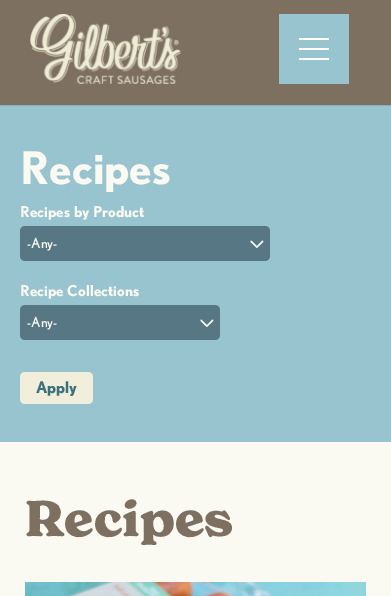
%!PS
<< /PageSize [391 596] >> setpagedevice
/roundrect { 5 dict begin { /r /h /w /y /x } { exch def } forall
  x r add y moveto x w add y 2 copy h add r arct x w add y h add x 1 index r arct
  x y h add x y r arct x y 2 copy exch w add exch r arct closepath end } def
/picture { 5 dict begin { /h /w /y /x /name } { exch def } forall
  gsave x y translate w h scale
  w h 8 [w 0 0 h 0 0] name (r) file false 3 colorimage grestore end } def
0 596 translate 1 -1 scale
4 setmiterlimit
0.98 0.976 0.949 setrgbcolor
0 0 391 596 rectfill
0.537 0.69 0.729 setrgbcolor
0 105 391 1 rectfill
0.49 0.439 0.376 setrgbcolor
0 0 391 105 rectfill
(img1.rgb) 30 14 151 70 picture
0.596 0.769 0.812 setrgbcolor
279 14 70 70 rectfill
1 setgray
299 38 30 2 rectfill
299 48 30 2 rectfill
299 58 30 2 rectfill
0.596 0.769 0.812 setrgbcolor
0 106 391 336 rectfill
/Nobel-Bold [45 0 0 -45 0 0] selectfont
0.98 0.976 0.949 setrgbcolor
20 184 moveto (Recipes) show
/Nobel-Bold [15 0 0 -15 0 0] selectfont
20 217 moveto (Recipes by Product) show
0.345 0.467 0.518 setrgbcolor
20 226 250 35 5 roundrect fill
/Nobel-Regular [14 0 0 -14 0 0] selectfont
0.98 0.976 0.949 setrgbcolor
27 248 moveto (-Any-) show
(img2.rgb) 250 240 14 8 picture
/Nobel-Bold [15 0 0 -15 0 0] selectfont
20 296 moveto (Recipe Collections) show
0.345 0.467 0.518 setrgbcolor
20 305 200 35 5 roundrect fill
/Nobel-Regular [14 0 0 -14 0 0] selectfont
0.98 0.976 0.949 setrgbcolor
27 327 moveto (-Any-) show
(img2.rgb) 200 319 14 8 picture
0.945 0.933 0.859 setrgbcolor
20 372 73 32 5 roundrect fill
/Nobel-Bold [16 0 0 -16 0 0] selectfont
0.231 0.447 0.49 setrgbcolor
36 393 moveto (Apply) show
/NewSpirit-Bold [49 0 0 -49 0 0] selectfont
0.49 0.439 0.376 setrgbcolor
25 536 moveto (Recipes) show
(img3.rgb) 25 582 341 14 picture
showpage
